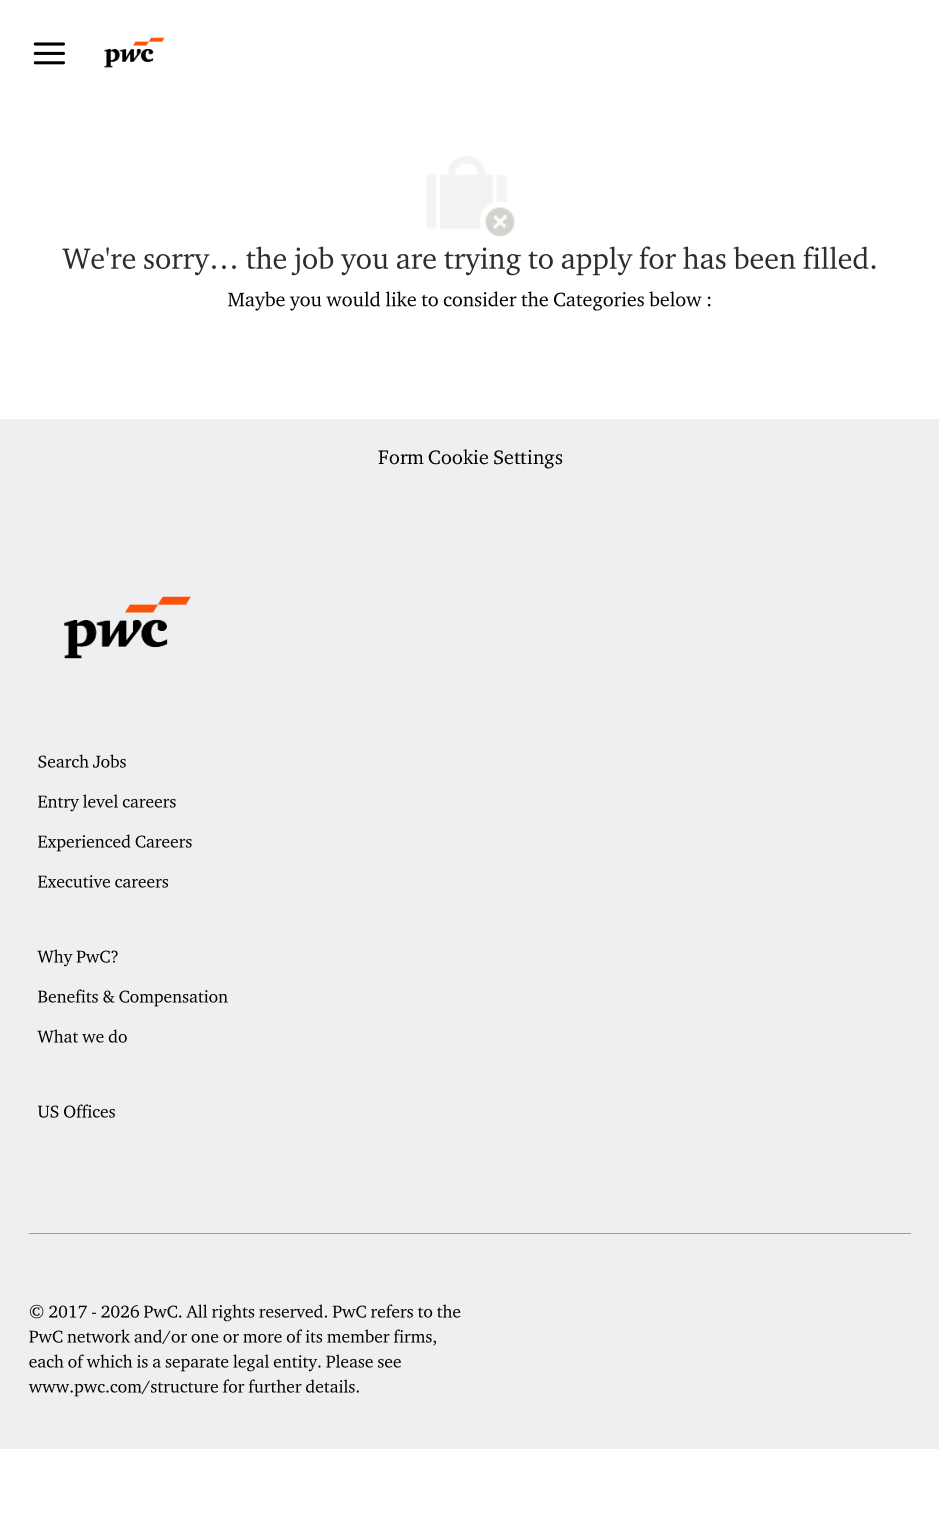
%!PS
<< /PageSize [939 1527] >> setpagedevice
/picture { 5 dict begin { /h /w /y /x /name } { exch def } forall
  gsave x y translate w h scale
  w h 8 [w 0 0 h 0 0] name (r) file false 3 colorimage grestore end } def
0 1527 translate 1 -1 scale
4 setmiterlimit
1 setgray
0 0 939 1527 rectfill
(img1.rgb) 33 42 32 23 picture
(img2.rgb) 104 37 61 31 picture
(img3.rgb) 426 155 89 82 picture
(img4.rgb) 62 246 814 30 picture
(img5.rgb) 228 291 483 20 picture
0.933 0.937 0.945 setrgbcolor
0 419 939 1030 rectfill
/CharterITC-Regular [20 0 0 -20 0 0] selectfont
0 setgray
378 464 moveto (Form Cookie Settings) show
(img6.rgb) 63 596 128 63 picture
(img7.rgb) 38 754 88 14 picture
(img8.rgb) 38 794 138 18 picture
(img9.rgb) 38 834 154 18 picture
(img10.rgb) 38 875 130 13 picture
(img11.rgb) 37 949 81 18 picture
(img12.rgb) 38 989 190 18 picture
(img13.rgb) 37 1029 90 14 picture
(img14.rgb) 37 1104 78 14 picture
0.608 setgray
29 1233 882 1 rectfill
(img15.rgb) 29 1304 432 18 picture
(img16.rgb) 29 1329 407 17 picture
(img17.rgb) 29 1354 372 18 picture
(img18.rgb) 28 1379 331 18 picture
showpage
